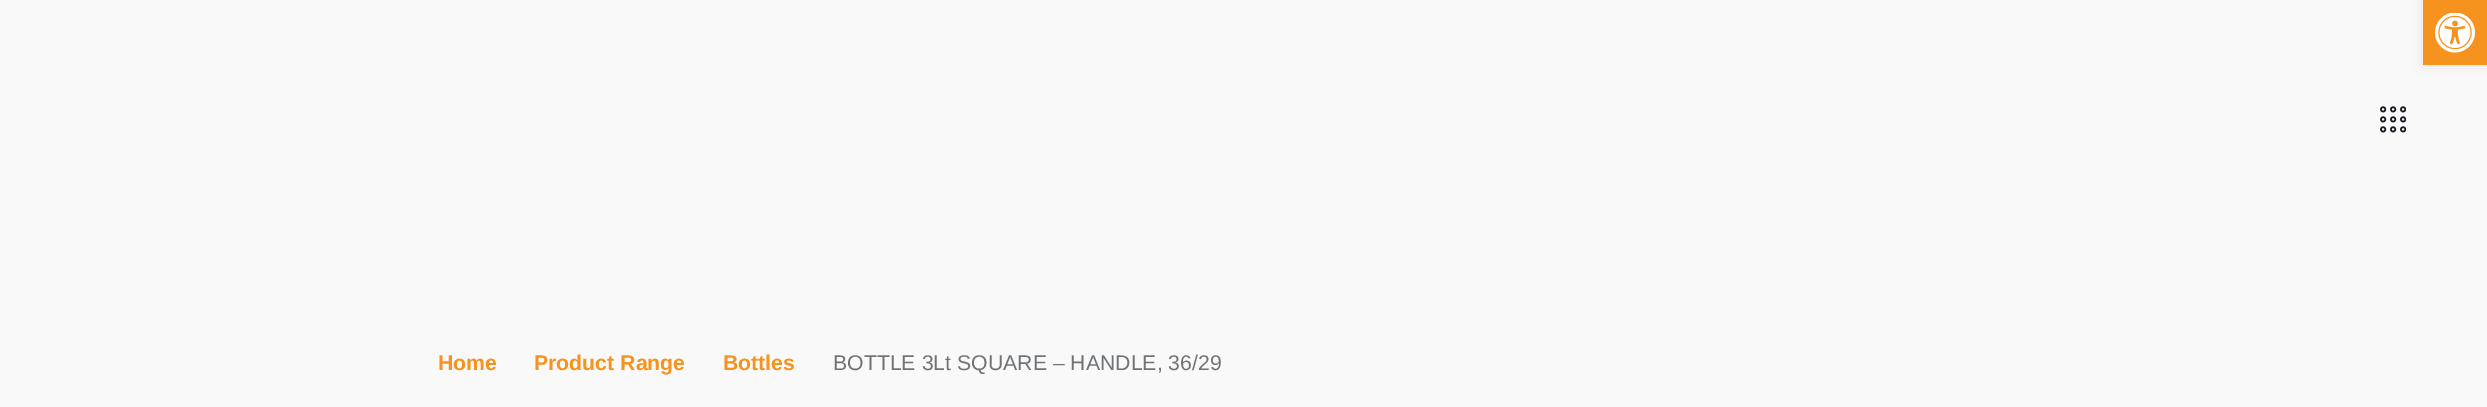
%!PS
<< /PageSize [2487 407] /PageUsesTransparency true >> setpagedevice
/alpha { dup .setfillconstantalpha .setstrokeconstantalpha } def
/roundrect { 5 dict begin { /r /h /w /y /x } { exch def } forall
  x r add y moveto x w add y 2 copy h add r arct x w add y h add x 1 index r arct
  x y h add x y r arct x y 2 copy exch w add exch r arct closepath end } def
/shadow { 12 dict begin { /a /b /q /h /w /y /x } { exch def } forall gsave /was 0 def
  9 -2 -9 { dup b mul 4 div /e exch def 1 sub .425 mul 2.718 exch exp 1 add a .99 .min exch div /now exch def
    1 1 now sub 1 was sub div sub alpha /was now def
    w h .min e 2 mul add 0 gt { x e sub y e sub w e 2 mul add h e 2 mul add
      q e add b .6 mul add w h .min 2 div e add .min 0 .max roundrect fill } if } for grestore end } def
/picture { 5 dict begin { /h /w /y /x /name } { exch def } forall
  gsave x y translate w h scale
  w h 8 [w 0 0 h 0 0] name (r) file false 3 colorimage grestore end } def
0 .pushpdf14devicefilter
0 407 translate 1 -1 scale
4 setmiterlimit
0.976 setgray
0 0 2487 407 rectfill
0 setgray
2423 0 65 65 0 6 0.1 shadow
0.965 0.573 0.118 setrgbcolor
2423 0 64 65 rectfill
(img1.rgb) 2435 13 40 40 picture
(img2.rgb) 2380 106 26 27 picture
/LiberationSans-Bold [21.25 0 0 -21.25 0 0] selectfont
438 370 moveto (Home) show
534 370 moveto (Product Range) show
723 370 moveto (Bottles) show
/LiberationSans-Regular [21.25 0 0 -21.25 0 0] selectfont
0.439 0.451 0.463 setrgbcolor
833 370 moveto (BOTTLE 3Lt SQUARE – HANDLE, 36/29) show
.poppdf14devicefilter showpage
